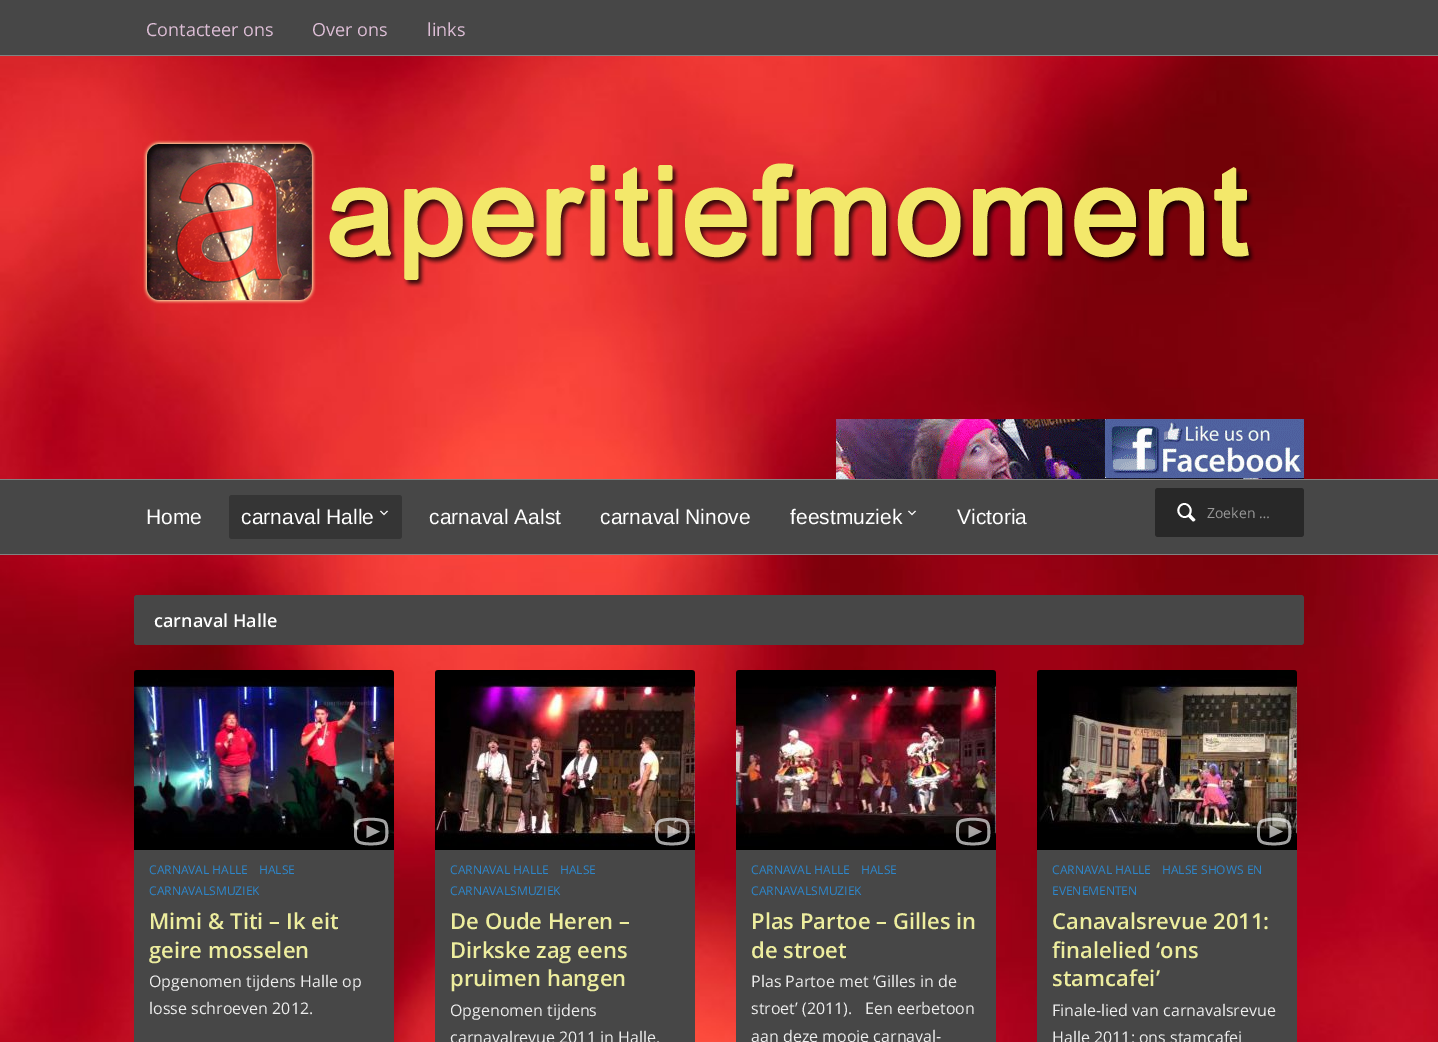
%!PS
<< /PageSize [1438 1042] >> setpagedevice
/roundrect { 5 dict begin { /r /h /w /y /x } { exch def } forall
  x r add y moveto x w add y 2 copy h add r arct x w add y h add x 1 index r arct
  x y h add x y r arct x y 2 copy exch w add exch r arct closepath end } def
/picture { 5 dict begin { /h /w /y /x /name } { exch def } forall
  gsave x y translate w h scale
  w h 8 [w 0 0 h 0 0] name (r) file false 3 colorimage grestore end } def
0 1042 translate 1 -1 scale
4 setmiterlimit
1 setgray
0 0 1438 1042 rectfill
(img1.rgb) 0 56 1438 986 picture
0.278 setgray
0 0 1438 55 rectfill
0.51 setgray
0 55 1438 1 rectfill
/OpenSans-Regular [18 0 0 -18 0 0] selectfont
0.867 0.745 0.839 setrgbcolor
146 36 moveto (Contacteer ons) show
312 36 moveto (Over ons) show
427 36 moveto (links) show
(img2.rgb) 143 140 1112 164 picture
(img3.rgb) 836 419 468 60 picture
0.278 setgray
0 480 1438 74 rectfill
0.51 setgray
0 479 1438 1 rectfill
0 554 1438 1 rectfill
/LiberationSans-Regular [21 0 0 -21 0 0] selectfont
1 setgray
146 524 moveto (Home) show
0.208 setgray
229 495 173 44 3 roundrect fill
1 setgray
241 524 moveto (carnaval Halle) show
(img4.rgb) 379 510 10 6 picture
429 524 moveto (carnaval Aalst) show
600 524 moveto (carnaval Ninove) show
790 524 moveto (feestmuziek) show
(img5.rgb) 907 510 10 6 picture
957 524 moveto (Victoria) show
0.157 setgray
1155 488 149 49 3 roundrect fill
(img6.rgb) 1177 503 19 19 picture
/OpenSans-Regular [14 0 0 -14 0 0] selectfont
0.6 setgray
1207 518 moveto (Zoeken …) show
0.278 setgray
134 595 1170 50 3 roundrect fill
/OpenSans-SemiBold [18 0 0 -18 0 0] selectfont
1 setgray
154 627 moveto (carnaval Halle) show
(img7.rgb) 134 670 260 180 picture
(img8.rgb) 354 817 35 29 picture
0.278 setgray
134 850 260 192 rectfill
/OpenSans-Regular [12 0 0 -12 0 0] selectfont
0.176 0.529 0.8 setrgbcolor
149 874 moveto (CARNAVAL HALLE) show
259 874 moveto (HALSE) show
149 895 moveto (CARNAVALSMUZIEK) show
/OpenSans-SemiBold [22 0 0 -22 0 0] selectfont
0.929 0.929 0.62 setrgbcolor
149 929 moveto (Mimi & Titi – Ik eit) show
149 958 moveto (geire mosselen) show
/OpenSans-Regular [16 0 0 -16 0 0] selectfont
0.929 setgray
149 987 moveto (Opgenomen tijdens Halle op) show
149 1014 moveto (losse schroeven 2012.) show
(img9.rgb) 435 670 260 180 picture
(img10.rgb) 655 817 35 29 picture
0.278 setgray
435 850 260 192 rectfill
/OpenSans-Regular [12 0 0 -12 0 0] selectfont
0.176 0.529 0.8 setrgbcolor
450 874 moveto (CARNAVAL HALLE) show
560 874 moveto (HALSE) show
450 895 moveto (CARNAVALSMUZIEK) show
/OpenSans-SemiBold [22 0 0 -22 0 0] selectfont
0.929 0.929 0.62 setrgbcolor
450 929 moveto (De Oude Heren –) show
450 958 moveto (Dirkske zag eens) show
450 986 moveto (pruimen hangen) show
/OpenSans-Regular [16 0 0 -16 0 0] selectfont
0.929 setgray
450 1016 moveto (Opgenomen tijdens) show
450 1043 moveto (carnavalrevue 2011 in Halle.) show
(img11.rgb) 736 670 260 180 picture
(img12.rgb) 956 817 35 29 picture
0.278 setgray
736 850 260 192 rectfill
/OpenSans-Regular [12 0 0 -12 0 0] selectfont
0.176 0.529 0.8 setrgbcolor
751 874 moveto (CARNAVAL HALLE) show
861 874 moveto (HALSE) show
751 895 moveto (CARNAVALSMUZIEK) show
/OpenSans-SemiBold [22 0 0 -22 0 0] selectfont
0.929 0.929 0.62 setrgbcolor
751 929 moveto (Plas Partoe – Gilles in) show
751 958 moveto (de stroet) show
/OpenSans-Regular [16 0 0 -16 0 0] selectfont
0.929 setgray
751 987 moveto (Plas Partoe met ‘Gilles in de) show
751 1014 moveto (stroet’ \(2011\).   Een eerbetoon) show
751 1042 moveto (aan deze mooie carnaval-) show
(img13.rgb) 1037 670 260 180 picture
(img14.rgb) 1257 817 35 29 picture
0.278 setgray
1037 850 260 192 rectfill
/OpenSans-Regular [12 0 0 -12 0 0] selectfont
0.176 0.529 0.8 setrgbcolor
1052 874 moveto (CARNAVAL HALLE) show
1162 874 moveto (HALSE SHOWS EN) show
1052 895 moveto (EVENEMENTEN) show
/OpenSans-SemiBold [22 0 0 -22 0 0] selectfont
0.929 0.929 0.62 setrgbcolor
1052 929 moveto (Canavalsrevue 2011:) show
1052 958 moveto (finalelied ‘ons) show
1052 986 moveto (stamcafei’) show
/OpenSans-Regular [16 0 0 -16 0 0] selectfont
0.929 setgray
1052 1016 moveto (Finale-lied van carnavalsrevue) show
1052 1043 moveto (Halle 2011: ons stamcafei) show
showpage
